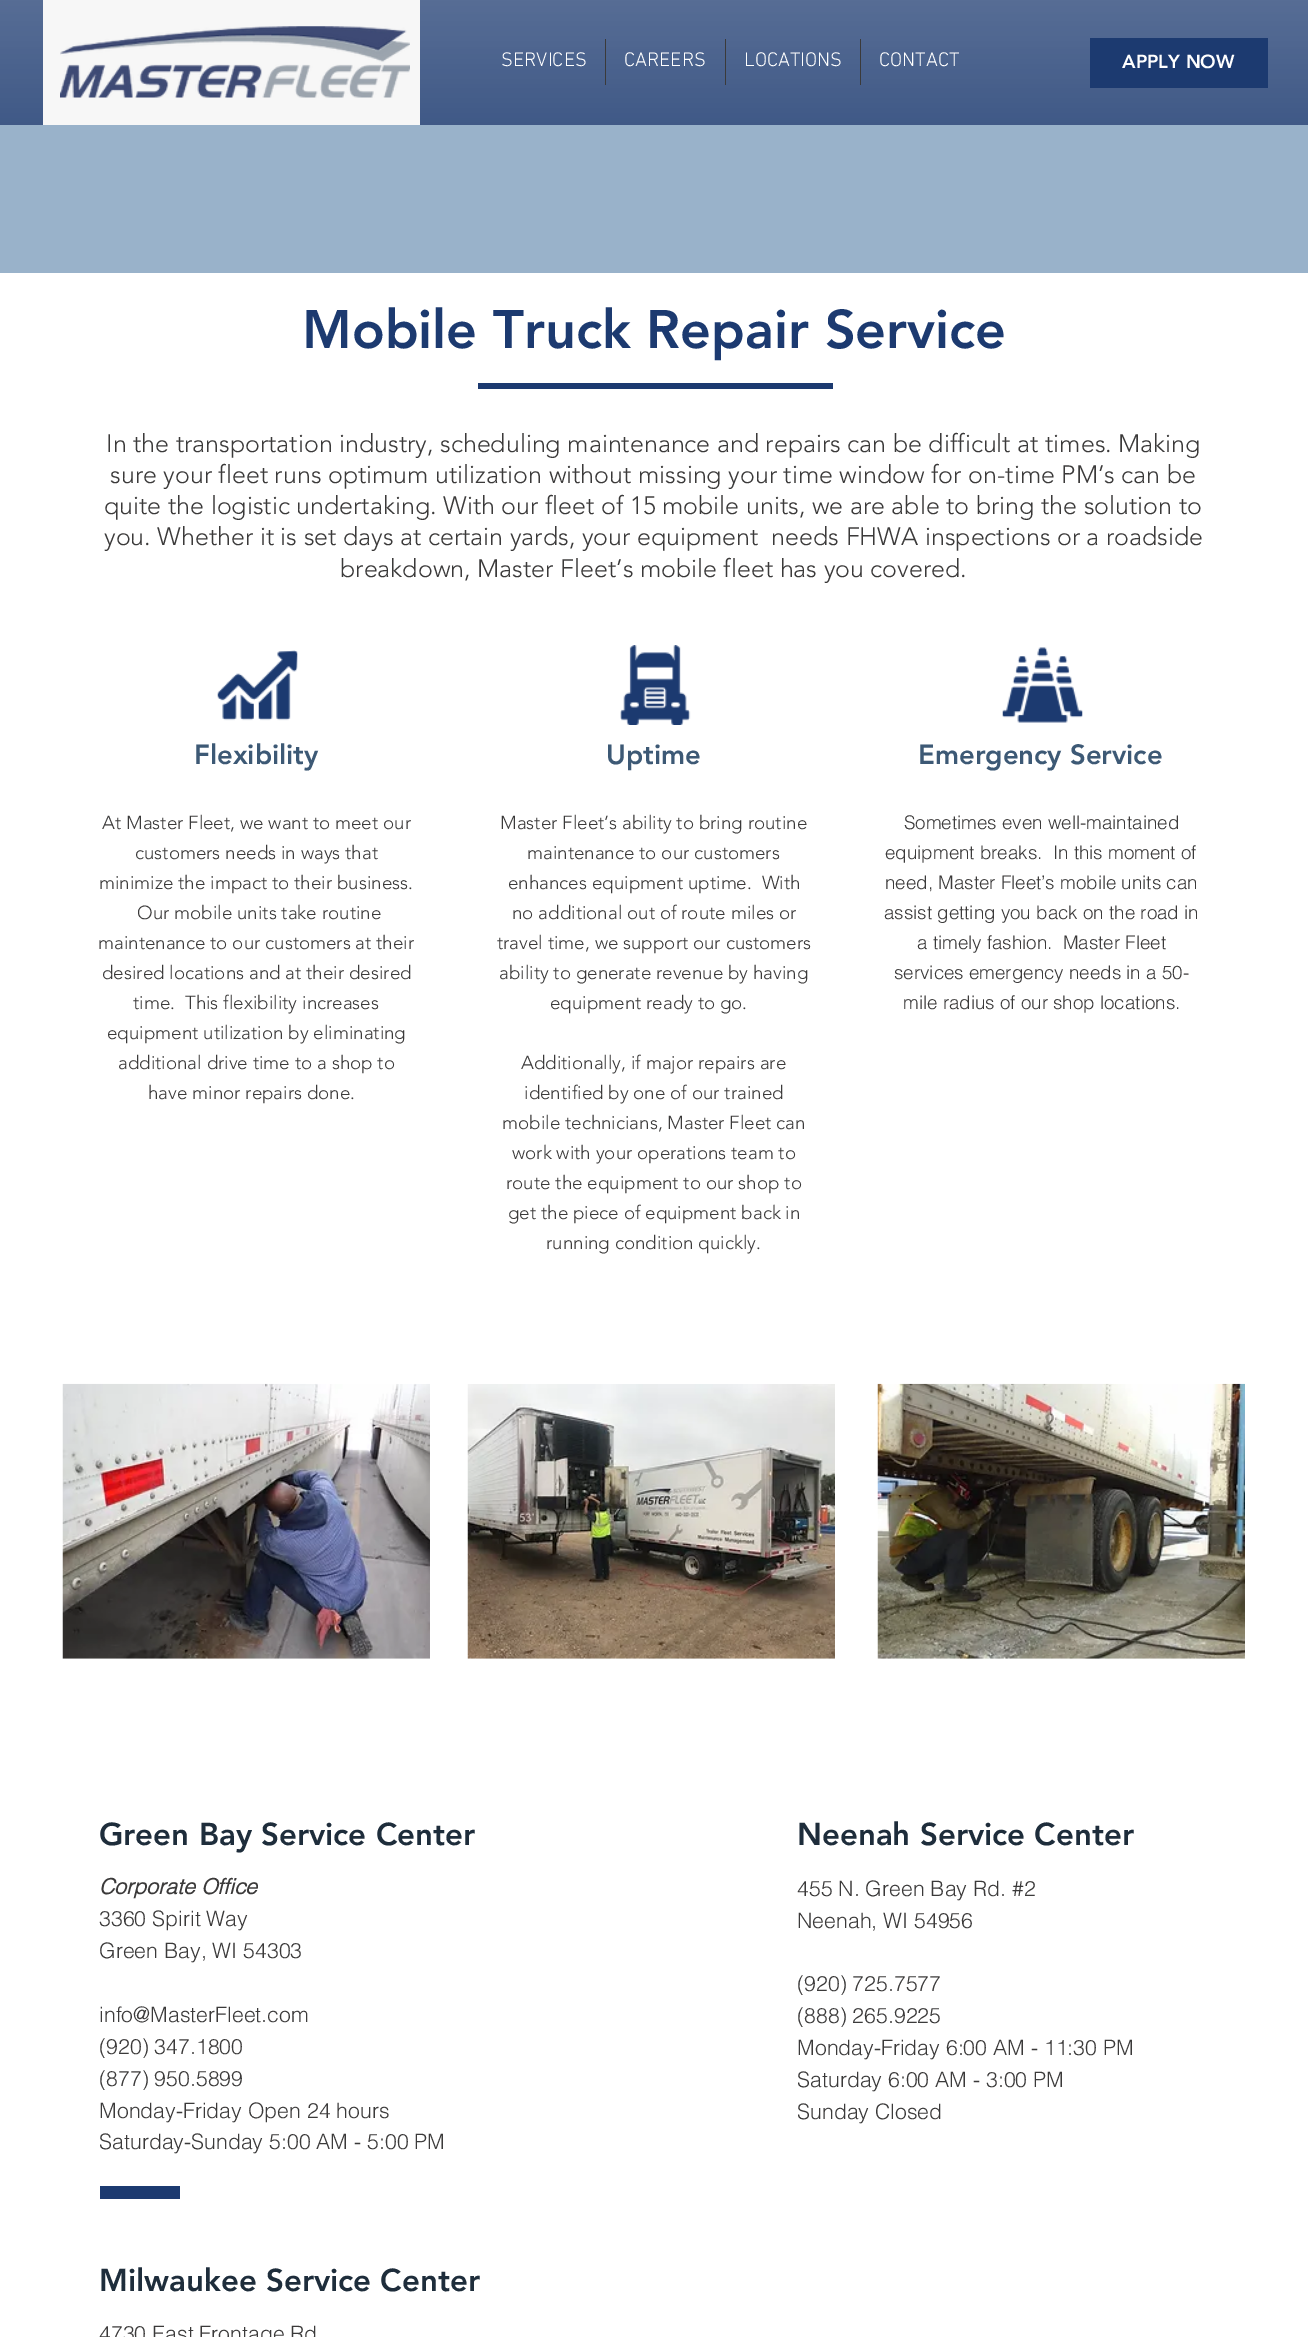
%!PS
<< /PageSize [1308 2337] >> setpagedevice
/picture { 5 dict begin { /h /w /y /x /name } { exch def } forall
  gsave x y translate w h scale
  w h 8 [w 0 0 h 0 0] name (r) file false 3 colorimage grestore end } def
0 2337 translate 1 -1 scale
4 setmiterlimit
1 setgray
0 0 1308 2337 rectfill
0.11 0.227 0.439 setrgbcolor
0 0 1308 125 rectfill
(img1.rgb) 0 0 1308 125 picture
0.969 setgray
43 0 377 125 rectfill
(img2.rgb) 60 26 350 72 picture
/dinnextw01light-Light [20 0 0 -20 0 0] selectfont
1 setgray
501 66 moveto (SERVICES) show
0.231 0.227 0.227 setrgbcolor
605 39 1 46 rectfill
1 setgray
624 66 moveto (CAREERS) show
0.231 0.227 0.227 setrgbcolor
725 39 1 46 rectfill
1 setgray
744 66 moveto (LOCATIONS) show
0.231 0.227 0.227 setrgbcolor
860 39 1 46 rectfill
1 setgray
879 66 moveto (CONTACT) show
0.11 0.227 0.439 setrgbcolor
1090 38 178 50 rectfill
/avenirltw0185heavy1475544-Black [18.75 0 0 -18.75 0 0] selectfont
1 setgray
1122 68 moveto (APPLY NOW) show
0.6 0.698 0.792 setrgbcolor
0 125 1308 148 rectfill
/avenirltw0185heavy1475544-Black [53.75 0 0 -53.75 0 0] selectfont
0.11 0.227 0.439 setrgbcolor
302 348 moveto (Mobile Truck Repair Service) show
478 383 355 6 rectfill
/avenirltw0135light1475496-Light [25 0 0 -25 0 0] selectfont
0.231 0.227 0.227 setrgbcolor
106 452 moveto (In the transportation industry, scheduling maintenance and repairs can be difficult at times. Making) show
110 483 moveto (sure your fleet runs optimum utilization without missing your time window for on-time PM’s can be) show
104 514 moveto (quite the logistic undertaking. With our fleet of 15 mobile units, we are able to bring the solution to) show
104 545 moveto (you. Whether it is set days at certain yards, your equipment  needs FHWA inspections or a roadside) show
340 577 moveto (breakdown, Master Fleet’s mobile fleet has you covered.) show
(img3.rgb) 217 650 81 71 picture
(img4.rgb) 620 645 71 80 picture
(img5.rgb) 1002 647 81 76 picture
/avenirltw0185heavy1475544-Black [27.5 0 0 -27.5 0 0] selectfont
0.239 0.349 0.459 setrgbcolor
194 764 moveto (Flexibility) show
606 764 moveto (Uptime) show
918 764 moveto (Emergency Service) show
/avenirltw0135light1475496-Light [18.75 0 0 -18.75 0 0] selectfont
0.231 0.227 0.227 setrgbcolor
102 829 moveto (At Master Fleet, we want to meet our) show
135 859 moveto (customers needs in ways that) show
99 889 moveto (minimize the impact to their business.) show
137 919 moveto (Our mobile units take routine) show
98 949 moveto (maintenance to our customers at their) show
102 979 moveto (desired locations and at their desired) show
133 1009 moveto (time.  This flexibility increases) show
107 1039 moveto (equipment utilization by eliminating) show
118 1069 moveto (additional drive time to a shop to) show
148 1099 moveto (have minor repairs done.) show
500 829 moveto (Master Fleet’s ability to bring routine) show
527 859 moveto (maintenance to our customers) show
508 889 moveto (enhances equipment uptime.  With) show
512 919 moveto (no additional out of route miles or) show
497 949 moveto (travel time, we support our customers) show
499 979 moveto (ability to generate revenue by having) show
550 1009 moveto (equipment ready to go.) show
521 1069 moveto (Additionally, if major repairs are) show
524 1099 moveto (identified by one of our trained) show
502 1129 moveto (mobile technicians, Master Fleet can) show
512 1159 moveto (work with your operations team to) show
506 1189 moveto (route the equipment to our shop to) show
508 1219 moveto (get the piece of equipment back in) show
546 1249 moveto (running condition quickly.) show
/helvetica-Light [18.75 0 0 -18.75 0 0] selectfont
904 829 moveto (Sometimes even well-maintained) show
885 859 moveto (equipment breaks.  In this moment of) show
885 889 moveto (need, Master Fleet’s mobile units can) show
884 919 moveto (assist getting you back on the road in) show
917 949 moveto (a timely fashion.  Master Fleet) show
894 979 moveto (services emergency needs in a 50-) show
903 1009 moveto (mile radius of our shop locations.) show
(img6.rgb) 62 1383 368 276 picture
(img7.rgb) 467 1384 368 275 picture
(img8.rgb) 877 1383 368 276 picture
/avenirltw0185heavy1475544-Black [31.25 0 0 -31.25 0 0] selectfont
0.118 0.176 0.231 setrgbcolor
99 1845 moveto (Green Bay Service Center) show
797 1845 moveto (Neenah Service Center) show
/helvetica-BoldItalic [21.25 0 0 -21.25 0 0] selectfont
0.231 0.227 0.227 setrgbcolor
99 1894 moveto (Corporate Office) show
/helvetica-Light [21.25 0 0 -21.25 0 0] selectfont
99 1926 moveto (3360 Spirit Way) show
99 1958 moveto (Green Bay, WI 54303) show
99 2022 moveto (info@MasterFleet.com) show
99 2054 moveto (\(920\) 347.1800) show
99 2086 moveto (\(877\) 950.5899) show
99 2118 moveto (Monday-Friday Open 24 hours) show
99 2149 moveto (Saturday-Sunday 5:00 AM - 5:00 PM) show
797 1896 moveto (455 N. Green Bay Rd. #2) show
797 1928 moveto (Neenah, WI 54956) show
797 1991 moveto (\(920\) 725.7577) show
797 2023 moveto (\(888\) 265.9225) show
797 2055 moveto (Monday-Friday 6:00 AM - 11:30 PM) show
797 2087 moveto (Saturday 6:00 AM - 3:00 PM) show
797 2119 moveto (Sunday Closed) show
0.11 0.227 0.439 setrgbcolor
100 2186 80 13 rectfill
/avenirltw0185heavy1475544-Black [31.25 0 0 -31.25 0 0] selectfont
0.118 0.176 0.231 setrgbcolor
99 2291 moveto (Milwaukee Service Center) show
/helvetica-Light [21.25 0 0 -21.25 0 0] selectfont
0.231 0.227 0.227 setrgbcolor
99 2341 moveto (4730 East Frontage Rd) show
showpage
